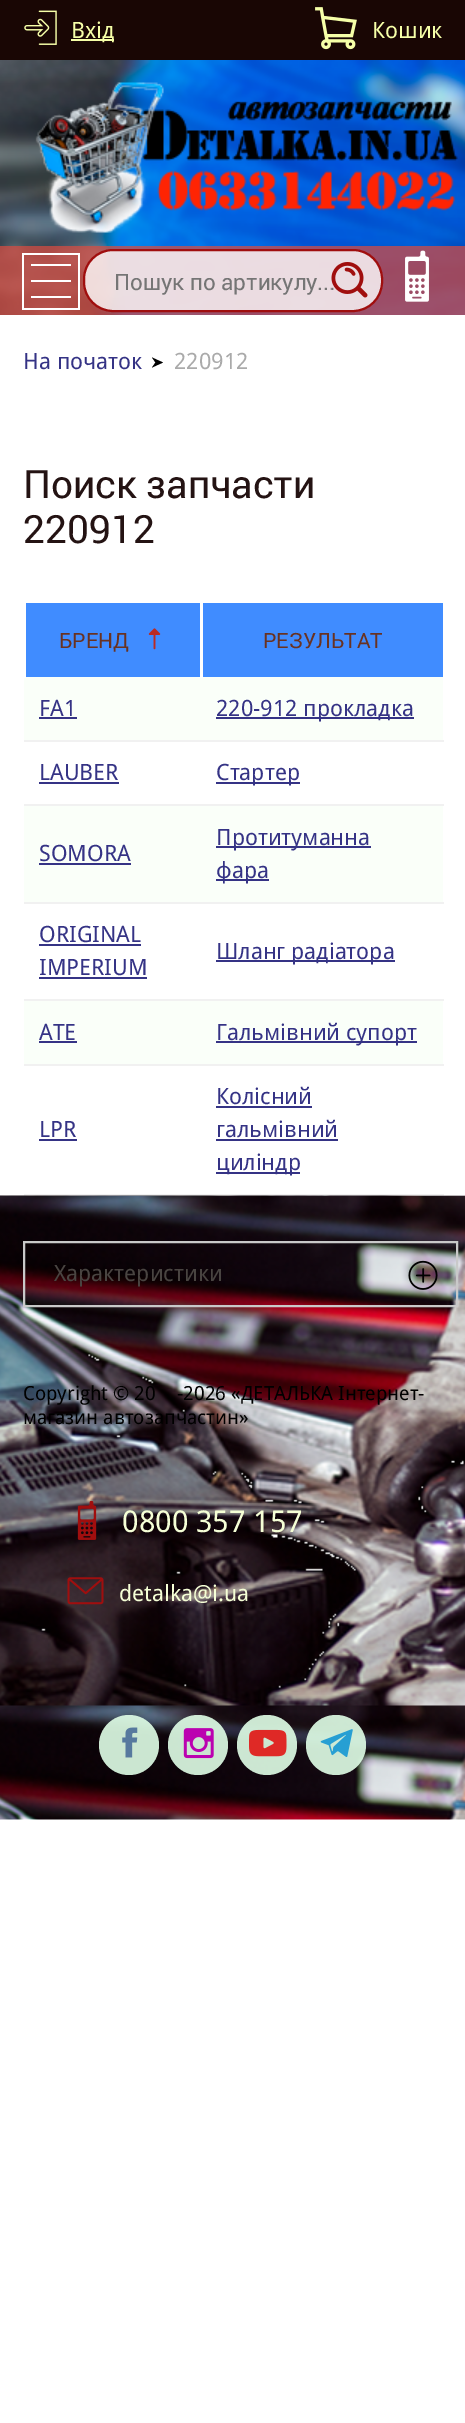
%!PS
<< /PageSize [465 2423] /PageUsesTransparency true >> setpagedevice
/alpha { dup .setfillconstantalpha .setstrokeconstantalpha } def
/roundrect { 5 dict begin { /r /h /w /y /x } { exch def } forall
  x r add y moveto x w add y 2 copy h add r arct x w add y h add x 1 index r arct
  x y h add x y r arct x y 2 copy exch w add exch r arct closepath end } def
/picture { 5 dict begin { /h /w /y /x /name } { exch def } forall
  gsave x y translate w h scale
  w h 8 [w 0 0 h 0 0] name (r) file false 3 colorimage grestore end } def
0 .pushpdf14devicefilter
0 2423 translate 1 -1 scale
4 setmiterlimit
1 setgray
0 0 465 2423 rectfill
(img1.rgb) 0 60 465 255 picture
0.098 0.024 0.016 setrgbcolor
0 0 465 60 rectfill
(img2.rgb) 24 10 33 35 picture
0.965 1 0.659 setrgbcolor
71 39 43 2 rectfill
/DroidSans-Regular [22.5 0 0 -22.5 0 0] selectfont
71 38 moveto (Вхід) show
(img3.rgb) 315 7 42 43 picture
372 38 moveto (Кошик) show
0.3 alpha
0.8 0.8 0.776 setrgbcolor
0 246 465 69 rectfill
0.6 alpha
0.859 0.192 0.145 setrgbcolor
0 246 465 69 rectfill
1 alpha
1 setgray
newpath 31 264 moveto 71 264 lineto 71 266 lineto 31 266 lineto closepath 31 280 moveto 71 280 lineto 71 282 lineto 31 282 lineto closepath 31 296 moveto 71 296 lineto 71 298 lineto 31 298 lineto closepath 22 253 moveto 22 310 lineto 80 310 lineto 80 253 lineto closepath 78 308 moveto 24 308 lineto 24 255 lineto 78 255 lineto closepath fill
(img4.rgb) 35 82 423 151 picture
0.8 alpha
84 250 298 61 29 roundrect fill
1 alpha
0.627 0.055 0.055 setrgbcolor
2 setlinewidth
84 250 298 61 29 roundrect stroke
/Roboto-Regular [22.5 0 0 -22.5 0 0] selectfont
0.459 setgray
114 290 moveto (Пошук по артикулу...) show
(img5.rgb) 331 262 37 36 picture
(img6.rgb) 405 250 24 52 picture
/DroidSans-Regular [22.5 0 0 -22.5 0 0] selectfont
0.208 0.2 0.522 setrgbcolor
23 369 moveto (На початок) show
0 setgray
newpath 152 367.5 moveto 155.5 362.5 lineto 152 357.5 lineto 163 362.5 lineto closepath fill
0.667 setgray
174 369 moveto (220912) show
/Roboto-Regular [39 0 0 -39 0 0] selectfont
0.141 0.075 0.075 setrgbcolor
23 498 moveto (Поиск запчасти) show
23 543 moveto (220912) show
0.251 0.549 1 setrgbcolor
26 603 174 74 rectfill
0.98 1 0.976 setrgbcolor
24 677 419 63 rectfill
1 setgray
24 677 2 1 rectfill
/Roboto-Regular [21 0 0 -21 0 0] selectfont
0.412 0.196 0.129 setrgbcolor
59 648 moveto (БРЕНД) show
(img7.rgb) 148 628 13 22 picture
0.251 0.549 1 setrgbcolor
203 603 240 74 rectfill
1 setgray
200 677 3 1 rectfill
0.412 0.196 0.129 setrgbcolor
263 648 moveto (РЕЗУЛЬТАТ) show
/DroidSans-Regular [22.5 0 0 -22.5 0 0] selectfont
0.208 0.2 0.522 setrgbcolor
39 716 moveto (FA1) show
39 717 38 2 rectfill
0.945 setgray
24 740 420 2 rectfill
0.208 0.2 0.522 setrgbcolor
216 717 198 2 rectfill
216 716 moveto (220-912 прокладка) show
39 780 moveto (LAUBER) show
39 782 80 2 rectfill
0.945 setgray
24 804 420 2 rectfill
0.208 0.2 0.522 setrgbcolor
216 782 84 2 rectfill
216 780 moveto (Стартер) show
0.98 1 0.976 setrgbcolor
24 806 419 96 rectfill
0.208 0.2 0.522 setrgbcolor
39 861 moveto (SOMORA) show
39 863 92 2 rectfill
0.945 setgray
24 902 420 2 rectfill
0.208 0.2 0.522 setrgbcolor
216 846 155 2 rectfill
216 845 moveto (Протитуманна) show
216 879 53 2 rectfill
216 878 moveto (фара) show
39 942 moveto (ORIGINAL) show
39 944 102 2 rectfill
39 975 moveto (IMPERIUM) show
39 977 108 2 rectfill
0.945 setgray
24 999 420 2 rectfill
0.208 0.2 0.522 setrgbcolor
216 960 179 2 rectfill
216 959 moveto (Шланг радіатора) show
0.98 1 0.976 setrgbcolor
24 1001 419 63 rectfill
0.208 0.2 0.522 setrgbcolor
39 1040 moveto (ATE) show
39 1041 38 2 rectfill
0.945 setgray
24 1064 420 2 rectfill
0.208 0.2 0.522 setrgbcolor
216 1041 201 2 rectfill
216 1040 moveto (Гальмівний супорт) show
39 1137 moveto (LPR) show
39 1139 38 2 rectfill
0.945 setgray
24 1194 420 2 rectfill
0.208 0.2 0.522 setrgbcolor
216 1104 moveto (Колісний) show
216 1106 96 2 rectfill
216 1137 moveto (гальмівний) show
216 1139 122 2 rectfill
216 1172 84 2 rectfill
216 1170 moveto (циліндр) show
(img8.rgb) 0 1195 465 625 picture
0.788 setgray
24 1242 433 64 rectstroke
0.286 0.267 0.255 setrgbcolor
54 1281 moveto (Характеристики) show
(img9.rgb) 408 1260 30 30 picture
/DroidSans-Regular [19.5 0 0 -19.5 0 0] selectfont
0 setgray
23 1400 moveto (Copyright © 20) show
177 1400 moveto (-2026 «ДЕТАЛЬКА Інтернет-) show
23 1424 moveto (магазин автозапчастин») show
(img10.rgb) 77 1500 20 40 picture
/DroidSans-Regular [30 0 0 -30 0 0] selectfont
0.961 1 0.839 setrgbcolor
122 1532 moveto (0800 357 157) show
(img11.rgb) 67 1577 37 28 picture
/DroidSans-Regular [22.5 0 0 -22.5 0 0] selectfont
119 1601 moveto (detalka@i.ua) show
0.9 alpha
0.878 1 0.906 setrgbcolor
newpath 129 1745 30 0 360 arc closepath fill
1 alpha
(img12.rgb) 122 1727 16 31 picture
0.9 alpha
newpath 198 1745 30 0 360 arc closepath fill
1 alpha
(img13.rgb) 183 1728 31 31 picture
0.9 alpha
newpath 267 1745 30 0 360 arc closepath fill
1 alpha
(img14.rgb) 249 1729 38 28 picture
0.9 alpha
newpath 336 1745 30 0 360 arc closepath fill
1 alpha
(img15.rgb) 320 1729 33 28 picture
.poppdf14devicefilter showpage
